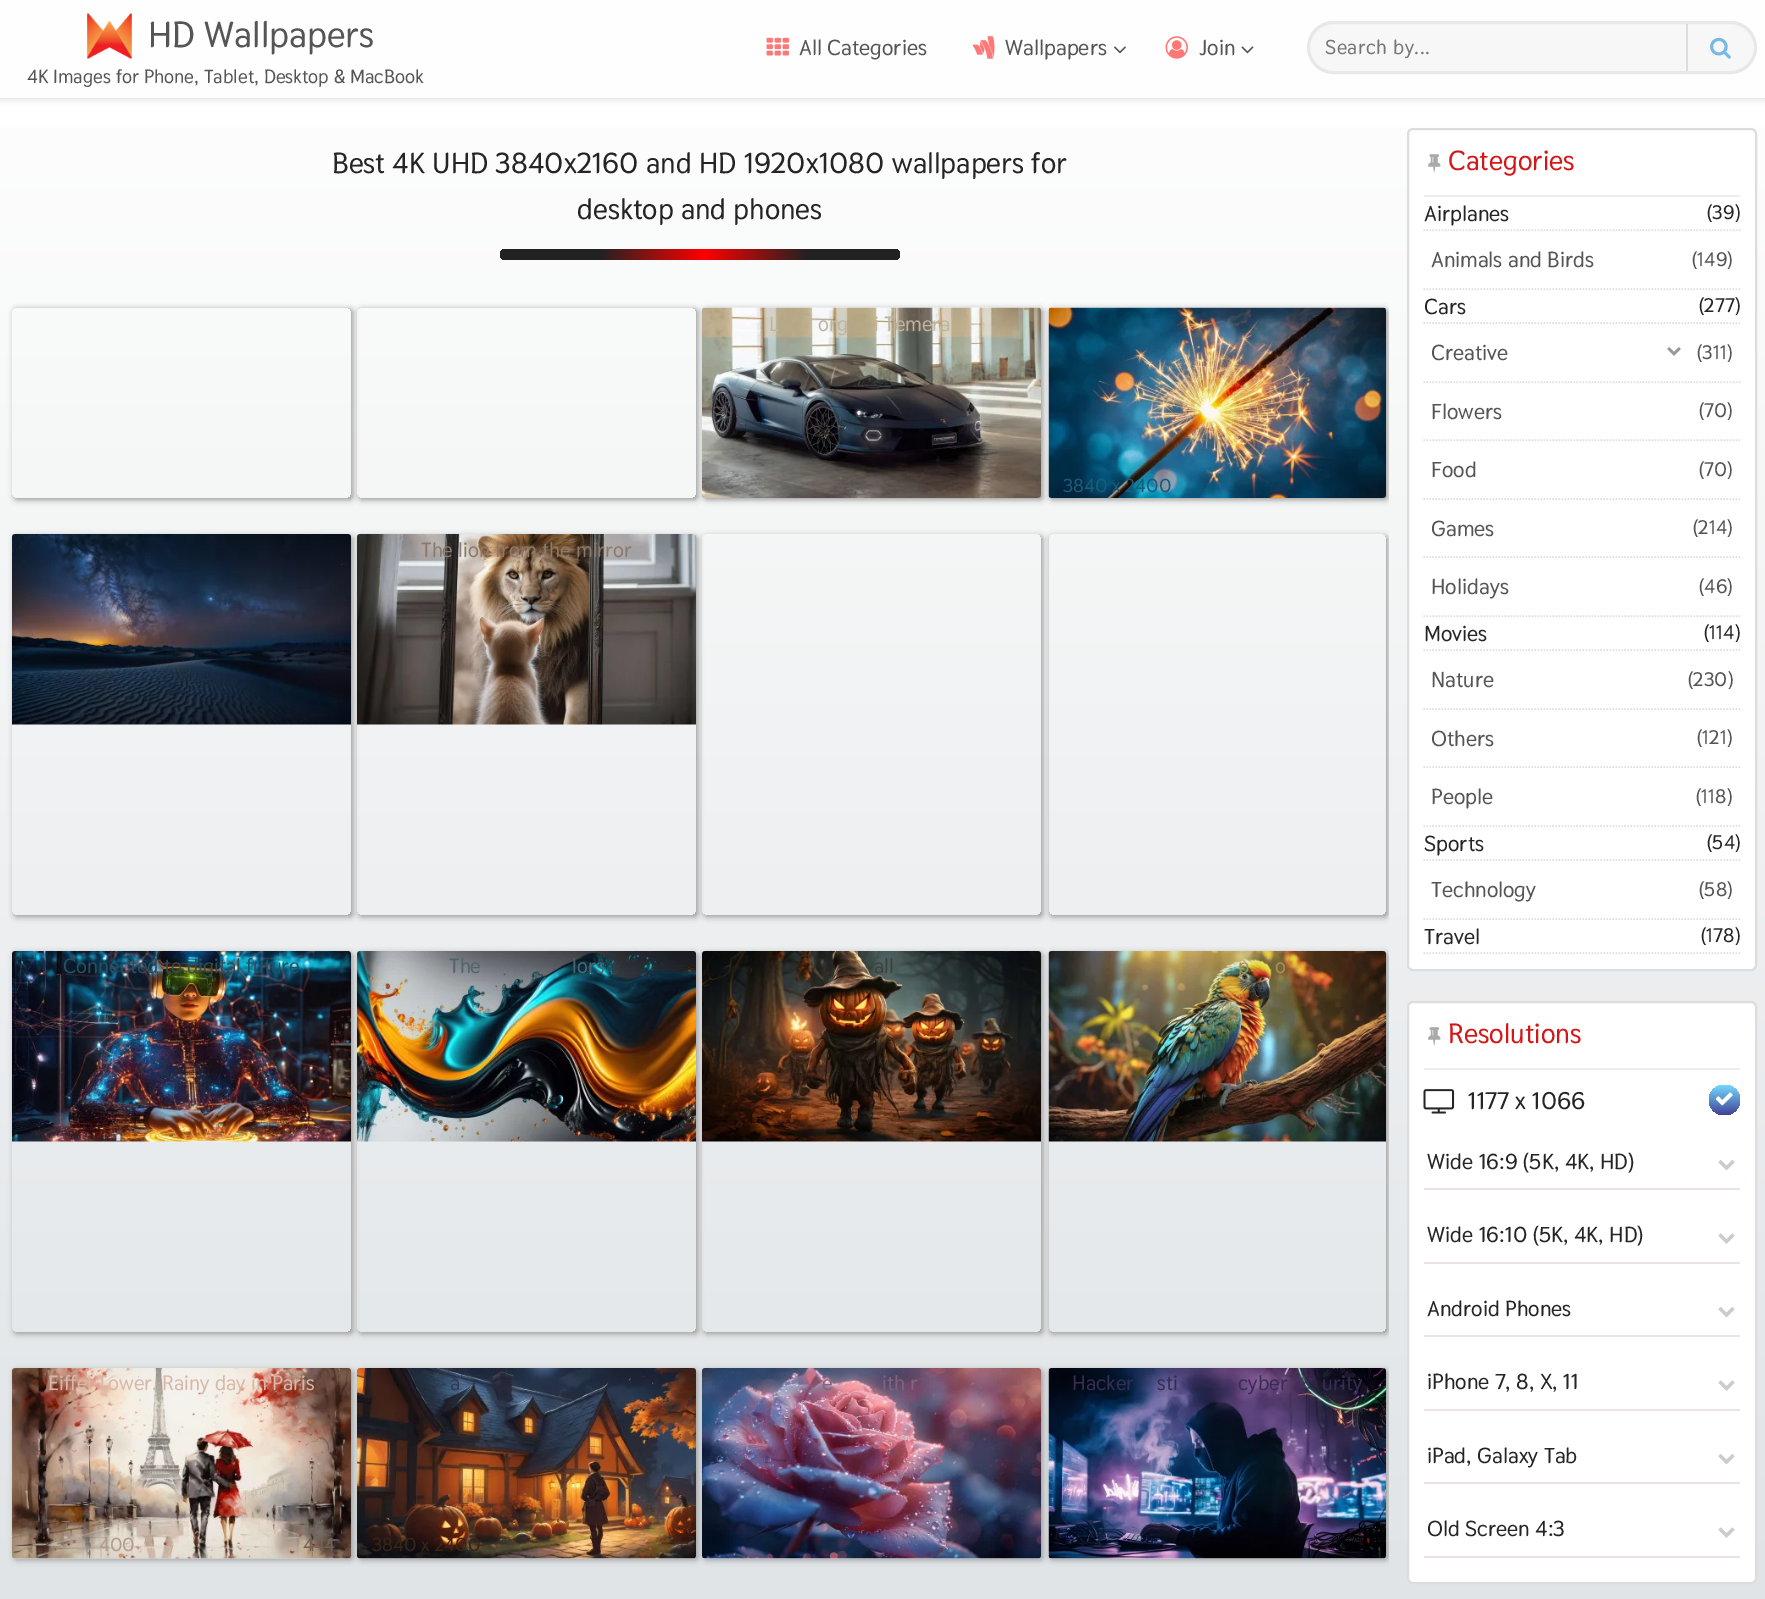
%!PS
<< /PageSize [1765 1599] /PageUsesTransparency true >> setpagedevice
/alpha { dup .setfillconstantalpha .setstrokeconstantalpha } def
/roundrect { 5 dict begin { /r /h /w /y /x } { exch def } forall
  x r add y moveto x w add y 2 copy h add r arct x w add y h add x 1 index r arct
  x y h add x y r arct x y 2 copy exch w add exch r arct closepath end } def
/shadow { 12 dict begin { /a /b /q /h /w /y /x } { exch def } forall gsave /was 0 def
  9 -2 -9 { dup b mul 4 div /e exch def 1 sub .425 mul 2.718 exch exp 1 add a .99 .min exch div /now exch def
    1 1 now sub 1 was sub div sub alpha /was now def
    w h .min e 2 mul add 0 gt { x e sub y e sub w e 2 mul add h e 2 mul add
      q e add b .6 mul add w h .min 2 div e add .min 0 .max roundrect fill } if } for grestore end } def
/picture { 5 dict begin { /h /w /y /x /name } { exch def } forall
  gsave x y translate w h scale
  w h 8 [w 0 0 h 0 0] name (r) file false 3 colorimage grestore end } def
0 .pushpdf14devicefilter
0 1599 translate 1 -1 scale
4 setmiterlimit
1 setgray
0 0 1765 1599 rectfill
gsave newpath 0 127 moveto 1765 127 lineto 1765 1599 lineto 0 1599 lineto closepath clip newpath
<< /ShadingType 2 /ColorSpace /DeviceRGB /Coords [883 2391 883 0] /Extend [true true] /Function << /FunctionType 2 /Domain [0 1] /C0 [0.816 0.839 0.855] /C1 [1 1 1] /N 1 >> >> shfill grestore
0.8 setgray
0 0 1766 98 0 4 1 shadow
0.996 setgray
0 0 1765 98 rectfill
(img1.rgb) 87 13 45 46 picture
/Thasadith-Bold [36 0 0 -36 0 0] selectfont
0.333 setgray
148 47 moveto (HD Wallpapers) show
/Thasadith-Bold [19 0 0 -19 0 0] selectfont
27 83 moveto (4K Images for Phone, Tablet, Desktop & MacBook) show
(img2.rgb) 766 37 23 19 picture
/Thasadith-Bold [21.6 0 0 -21.6 0 0] selectfont
799 55 moveto (All Categories) show
(img3.rgb) 972 36 23 23 picture
1005 55 moveto (Wallpapers) show
(img4.rgb) 1114 46 12 8 picture
(img5.rgb) 1165 36 23 23 picture
1199 55 moveto (Join) show
(img6.rgb) 1241 46 13 8 picture
0.969 setgray
1308.5 22.5 447 50 25 roundrect gsave fill grestore
0.91 setgray
3 setlinewidth
stroke
/Thasadith-Bold [20 0 0 -20 0 0] selectfont
0.459 setgray
1325 54 moveto 0.5 0 (Search by...) ashow
0.867 setgray
1686 24 2 47 rectfill
(img7.rgb) 1710 37 21 22 picture
/Thasadith-Bold [28.8 0 0 -28.8 0 0] selectfont
0.145 setgray
332 173 moveto (Best 4K UHD 3840x2160 and HD 1920x1080 wallpapers for) show
577 219 moveto (desktop and phones) show
gsave 500 249 400 11 5.5 roundrect clip newpath
<< /ShadingType 2 /ColorSpace /DeviceRGB /Coords [500 254 900 254] /Extend [true true] /Function << /FunctionType 3 /Domain [0 1] /Functions [<< /FunctionType 2 /Domain [0 1] /C0 [0.133 0.133 0.133] /C1 [0.133 0.133 0.133] /N 1 >> << /FunctionType 2 /Domain [0 1] /C0 [0.133 0.133 0.133] /C1 [1 0 0] /N 1 >> << /FunctionType 2 /Domain [0 1] /C0 [1 0 0] /C1 [0.133 0.133 0.133] /N 1 >> << /FunctionType 2 /Domain [0 1] /C0 [0.133 0.133 0.133] /C1 [0.133 0.133 0.133] /N 1 >>] /Bounds [0.25 0.51 0.77] /Encode [0 1 0 1 0 1 0 1] >> >> shfill grestore
gsave
newpath 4 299 moveto 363 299 lineto 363 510 lineto 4 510 lineto closepath 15 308 moveto 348 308 lineto 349.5 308 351 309.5 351 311 curveto 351 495 lineto 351 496.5 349.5 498 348 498 curveto 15 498 lineto 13.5 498 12 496.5 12 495 curveto 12 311 lineto 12 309.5 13.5 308 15 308 curveto closepath eoclip newpath
0.6 setgray
14 309 339 191 3 3 1 shadow
grestore
gsave
newpath 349 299 moveto 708 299 lineto 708 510 lineto 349 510 lineto closepath 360 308 moveto 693 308 lineto 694.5 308 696 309.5 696 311 curveto 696 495 lineto 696 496.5 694.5 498 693 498 curveto 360 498 lineto 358.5 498 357 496.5 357 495 curveto 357 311 lineto 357 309.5 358.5 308 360 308 curveto closepath eoclip newpath
0.6 setgray
359 309 339 191 3 3 1 shadow
grestore
0.6 setgray
704 309 339 191 3 3 1 shadow
(img8.rgb) 702 307 339 191 picture
/Thasadith-Bold [20.6 0 0 -20.6 0 0] selectfont
0.745 0.71 0.631 setrgbcolor
769 331 moveto (L) show
818 331 moveto (org) show
874 331 moveto (i Temera) show
gsave
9 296 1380 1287 rectclip
0.6 setgray
1050 309 338 191 3 3 1 shadow
grestore
(img9.rgb) 1048 307 338 191 picture
/Thasadith-Bold [18.75 0 0 -18.75 0 0] selectfont
0.11 0.357 0.463 setrgbcolor
1063 492 moveto (3840 x 2400) show
gsave
newpath 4 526 moveto 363 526 lineto 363 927 lineto 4 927 lineto closepath 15 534 moveto 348 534 lineto 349.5 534 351 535.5 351 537 curveto 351 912 lineto 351 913.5 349.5 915 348 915 curveto 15 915 lineto 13.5 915 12 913.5 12 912 curveto 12 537 lineto 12 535.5 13.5 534 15 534 curveto closepath eoclip newpath
0.6 setgray
14 536 339 381 3 3 1 shadow
grestore
(img10.rgb) 12 534 339 191 picture
gsave
newpath 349 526 moveto 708 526 lineto 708 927 lineto 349 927 lineto closepath 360 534 moveto 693 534 lineto 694.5 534 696 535.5 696 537 curveto 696 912 lineto 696 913.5 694.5 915 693 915 curveto 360 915 lineto 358.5 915 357 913.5 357 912 curveto 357 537 lineto 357 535.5 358.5 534 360 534 curveto closepath eoclip newpath
0.6 setgray
359 536 339 381 3 3 1 shadow
grestore
(img11.rgb) 357 534 339 191 picture
/Thasadith-Bold [20.6 0 0 -20.6 0 0] selectfont
0.545 0.478 0.42 setrgbcolor
421 557 moveto (The lion from the mirror) show
gsave
newpath 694 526 moveto 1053 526 lineto 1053 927 lineto 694 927 lineto closepath 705 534 moveto 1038 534 lineto 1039.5 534 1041 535.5 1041 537 curveto 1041 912 lineto 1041 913.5 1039.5 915 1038 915 curveto 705 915 lineto 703.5 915 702 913.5 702 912 curveto 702 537 lineto 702 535.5 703.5 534 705 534 curveto closepath eoclip newpath
0.6 setgray
704 536 339 381 3 3 1 shadow
grestore
gsave
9 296 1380 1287 rectclip
newpath 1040 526 moveto 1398 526 lineto 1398 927 lineto 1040 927 lineto closepath 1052 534 moveto 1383 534 lineto 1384.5 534 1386 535.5 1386 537 curveto 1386 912 lineto 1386 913.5 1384.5 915 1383 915 curveto 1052 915 lineto 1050.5 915 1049 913.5 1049 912 curveto 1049 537 lineto 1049 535.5 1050.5 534 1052 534 curveto closepath eoclip newpath
0.6 setgray
1050 536 338 381 3 3 1 shadow
grestore
gsave
newpath 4 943 moveto 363 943 lineto 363 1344 lineto 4 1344 lineto closepath 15 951 moveto 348 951 lineto 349.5 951 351 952.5 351 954 curveto 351 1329 lineto 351 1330.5 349.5 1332 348 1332 curveto 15 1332 lineto 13.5 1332 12 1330.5 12 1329 curveto 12 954 lineto 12 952.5 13.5 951 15 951 curveto closepath eoclip newpath
0.6 setgray
14 953 339 381 3 3 1 shadow
grestore
(img12.rgb) 12 951 339 191 picture
0.157 0.31 0.361 setrgbcolor
63 973 moveto (Connected to digital future) show
gsave
newpath 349 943 moveto 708 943 lineto 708 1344 lineto 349 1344 lineto closepath 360 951 moveto 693 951 lineto 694.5 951 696 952.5 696 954 curveto 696 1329 lineto 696 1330.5 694.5 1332 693 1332 curveto 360 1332 lineto 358.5 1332 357 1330.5 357 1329 curveto 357 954 lineto 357 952.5 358.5 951 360 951 curveto closepath eoclip newpath
0.6 setgray
359 953 339 381 3 3 1 shadow
grestore
(img13.rgb) 357 951 339 191 picture
0.306 0.396 0.431 setrgbcolor
449 973 moveto (The) show
572 973 moveto (lors) show
gsave
newpath 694 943 moveto 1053 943 lineto 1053 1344 lineto 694 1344 lineto closepath 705 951 moveto 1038 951 lineto 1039.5 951 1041 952.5 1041 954 curveto 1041 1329 lineto 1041 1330.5 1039.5 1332 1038 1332 curveto 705 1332 lineto 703.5 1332 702 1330.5 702 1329 curveto 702 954 lineto 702 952.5 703.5 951 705 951 curveto closepath eoclip newpath
0.6 setgray
704 953 339 381 3 3 1 shadow
grestore
(img14.rgb) 702 951 339 191 picture
0.243 0.251 0.227 setrgbcolor
874 973 moveto (all) show
gsave
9 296 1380 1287 rectclip
newpath 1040 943 moveto 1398 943 lineto 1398 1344 lineto 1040 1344 lineto closepath 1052 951 moveto 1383 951 lineto 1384.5 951 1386 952.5 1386 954 curveto 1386 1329 lineto 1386 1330.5 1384.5 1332 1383 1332 curveto 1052 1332 lineto 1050.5 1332 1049 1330.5 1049 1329 curveto 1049 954 lineto 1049 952.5 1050.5 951 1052 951 curveto closepath eoclip newpath
0.6 setgray
1050 953 338 381 3 3 1 shadow
grestore
(img15.rgb) 1048 951 338 191 picture
0.659 0.561 0.318 setrgbcolor
1238 973 moveto (p) show
1275 973 moveto (o) show
0.6 setgray
14 1370 339 190 3 3 1 shadow
(img16.rgb) 12 1368 339 191 picture
0.843 0.718 0.663 setrgbcolor
48 1390 moveto (Eiffel Tower. Rainy day in Paris) show
/Thasadith-Bold [18.75 0 0 -18.75 0 0] selectfont
0.675 0.616 0.561 setrgbcolor
99 1551 moveto (400) show
0.455 0.38 0.333 setrgbcolor
303 1551 moveto (444) show
0.6 setgray
359 1370 339 190 3 3 1 shadow
(img17.rgb) 357 1368 339 191 picture
/Thasadith-Bold [20.6 0 0 -20.6 0 0] selectfont
0.176 0.235 0.322 setrgbcolor
450 1390 moveto (a) show
/Thasadith-Bold [18.75 0 0 -18.75 0 0] selectfont
0.224 0.141 0.094 setrgbcolor
372 1551 moveto (3840 x 2400) show
0.6 setgray
704 1370 339 190 3 3 1 shadow
(img18.rgb) 702 1368 339 191 picture
/Thasadith-Bold [20.6 0 0 -20.6 0 0] selectfont
0.514 0.388 0.498 setrgbcolor
822 1390 moveto (e) show
882 1390 moveto (ith r) show
gsave
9 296 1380 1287 rectclip
0.6 setgray
1050 1370 338 190 3 3 1 shadow
grestore
(img19.rgb) 1048 1368 338 191 picture
0.208 0.18 0.329 setrgbcolor
1072 1390 moveto (Hacker) show
1157 1390 moveto (sti) show
1238 1390 moveto (cyber) show
1322 1390 moveto (urity) show
1 setgray
1408 129 348 841 5 roundrect gsave fill grestore
0.867 setgray
2 setlinewidth
stroke
0.929 setgray
1424 195 316 2 rectfill
(img20.rgb) 1428 154 13 19 picture
/Thasadith-Bold [27.5 0 0 -27.5 0 0] selectfont
0.831 0.086 0.086 setrgbcolor
1448 170 moveto (Categories) show
0.867 setgray
1.5 setlinewidth
[1.5 1.5] 0 setdash
newpath 1423.5 230 moveto 1740 230 lineto stroke
/Thasadith-Bold [21.6 0 0 -21.6 0 0] selectfont
0.145 setgray
1424 221 moveto (Airplanes) show
/Thasadith-Bold [19.5 0 0 -19.5 0 0] selectfont
1707 219 moveto (\(39\)) show
0.867 setgray
newpath 1423.5 289 moveto 1740 289 lineto stroke
/Thasadith-Bold [21.6 0 0 -21.6 0 0] selectfont
0.333 setgray
1431 267 moveto (Animals and Birds) show
/Thasadith-Bold [19.5 0 0 -19.5 0 0] selectfont
1692 266 moveto (\(149\)) show
0.867 setgray
newpath 1423.5 323 moveto 1740 323 lineto stroke
/Thasadith-Bold [21.6 0 0 -21.6 0 0] selectfont
0.145 setgray
1424 314 moveto (Cars) show
/Thasadith-Bold [19.5 0 0 -19.5 0 0] selectfont
1699 312 moveto (\(277\)) show
0.867 setgray
newpath 1423.5 382 moveto 1740 382 lineto stroke
/Thasadith-Bold [21.6 0 0 -21.6 0 0] selectfont
0.333 setgray
1431 360 moveto (Creative) show
(img21.rgb) 1667 347 14 9 picture
/Thasadith-Bold [19.5 0 0 -19.5 0 0] selectfont
1697 359 moveto (\(311\)) show
0.867 setgray
newpath 1423.5 440 moveto 1740 440 lineto stroke
/Thasadith-Bold [21.6 0 0 -21.6 0 0] selectfont
0.333 setgray
1431 419 moveto (Flowers) show
/Thasadith-Bold [19.5 0 0 -19.5 0 0] selectfont
1699 417 moveto (\(70\)) show
0.867 setgray
newpath 1423.5 499 moveto 1740 499 lineto stroke
/Thasadith-Bold [21.6 0 0 -21.6 0 0] selectfont
0.333 setgray
1431 477 moveto (Food) show
/Thasadith-Bold [19.5 0 0 -19.5 0 0] selectfont
1699 476 moveto (\(70\)) show
0.867 setgray
newpath 1423.5 557 moveto 1740 557 lineto stroke
/Thasadith-Bold [21.6 0 0 -21.6 0 0] selectfont
0.333 setgray
1431 536 moveto (Games) show
/Thasadith-Bold [19.5 0 0 -19.5 0 0] selectfont
1693 534 moveto (\(214\)) show
0.867 setgray
newpath 1423.5 616 moveto 1740 616 lineto stroke
/Thasadith-Bold [21.6 0 0 -21.6 0 0] selectfont
0.333 setgray
1431 594 moveto (Holidays) show
/Thasadith-Bold [19.5 0 0 -19.5 0 0] selectfont
1699 593 moveto (\(46\)) show
0.867 setgray
newpath 1423.5 650 moveto 1740 650 lineto stroke
/Thasadith-Bold [21.6 0 0 -21.6 0 0] selectfont
0.145 setgray
1424 641 moveto (Movies) show
/Thasadith-Bold [19.5 0 0 -19.5 0 0] selectfont
1704 639 moveto (\(114\)) show
0.867 setgray
newpath 1423.5 709 moveto 1740 709 lineto stroke
/Thasadith-Bold [21.6 0 0 -21.6 0 0] selectfont
0.333 setgray
1431 687 moveto (Nature) show
/Thasadith-Bold [19.5 0 0 -19.5 0 0] selectfont
1688 686 moveto (\(230\)) show
0.867 setgray
newpath 1423.5 767 moveto 1740 767 lineto stroke
/Thasadith-Bold [21.6 0 0 -21.6 0 0] selectfont
0.333 setgray
1431 746 moveto (Others) show
/Thasadith-Bold [19.5 0 0 -19.5 0 0] selectfont
1697 744 moveto (\(121\)) show
0.867 setgray
newpath 1423.5 826 moveto 1740 826 lineto stroke
/Thasadith-Bold [21.6 0 0 -21.6 0 0] selectfont
0.333 setgray
1431 804 moveto (People) show
/Thasadith-Bold [19.5 0 0 -19.5 0 0] selectfont
1696 803 moveto (\(118\)) show
0.867 setgray
newpath 1423.5 860 moveto 1740 860 lineto stroke
/Thasadith-Bold [21.6 0 0 -21.6 0 0] selectfont
0.145 setgray
1424 851 moveto (Sports) show
/Thasadith-Bold [19.5 0 0 -19.5 0 0] selectfont
1707 849 moveto (\(54\)) show
0.867 setgray
newpath 1423.5 919 moveto 1740 919 lineto stroke
/Thasadith-Bold [21.6 0 0 -21.6 0 0] selectfont
0.333 setgray
1431 897 moveto (Technology) show
/Thasadith-Bold [19.5 0 0 -19.5 0 0] selectfont
1699 896 moveto (\(58\)) show
0.867 setgray
newpath 1423.5 953 moveto 1740 953 lineto stroke
/Thasadith-Bold [21.6 0 0 -21.6 0 0] selectfont
0.145 setgray
1424 944 moveto (Travel) show
/Thasadith-Bold [19.5 0 0 -19.5 0 0] selectfont
1701 942 moveto (\(178\)) show
1 setgray
1408 1002 348 581 5 roundrect gsave fill grestore
0.867 setgray
2 setlinewidth
[] 0 setdash
stroke
0.929 setgray
1424 1068 316 2 rectfill
(img20.rgb) 1428 1027 13 19 picture
/Thasadith-Bold [27.5 0 0 -27.5 0 0] selectfont
0.831 0.086 0.086 setrgbcolor
1448 1043 moveto (Resolutions) show
(img22.rgb) 1423 1089 32 25 picture
/Thasadith-Bold [24 0 0 -24 0 0] selectfont
0.145 setgray
1468 1109 moveto (1177 x 1066) show
gsave 1709 1085 31 30 15 roundrect clip newpath
<< /ShadingType 2 /ColorSpace /DeviceRGB /Coords [1724 1085 1724 1115] /Extend [true true] /Function << /FunctionType 2 /Domain [0 1] /C0 [0.451 0.851 1] /C1 [0.263 0.255 0.588] /N 1 >> >> shfill grestore
(img23.rgb) 1715 1092 18 14 picture
0.925 0.89 0.89 setrgbcolor
1424 1188 316 2 rectfill
/Thasadith-Bold [21.6 0 0 -21.6 0 0] selectfont
0.145 setgray
1427 1169 moveto (Wide 16:9 \(5K, 4K, HD\)) show
(img24.rgb) 1718 1160 17 11 picture
0.925 0.89 0.89 setrgbcolor
1424 1262 316 2 rectfill
0.145 setgray
1427 1242 moveto (Wide 16:10 \(5K, 4K, HD\)) show
(img25.rgb) 1718 1233 17 11 picture
0.925 0.89 0.89 setrgbcolor
1424 1335 316 2 rectfill
0.145 setgray
1427 1316 moveto (Android Phones) show
(img24.rgb) 1718 1307 17 11 picture
0.925 0.89 0.89 setrgbcolor
1424 1409 316 2 rectfill
0.145 setgray
1427 1389 moveto (iPhone 7, 8, X, 11) show
(img25.rgb) 1718 1380 17 11 picture
0.925 0.89 0.89 setrgbcolor
1424 1482 316 2 rectfill
0.145 setgray
1427 1463 moveto (iPad, Galaxy Tab) show
(img24.rgb) 1718 1454 17 11 picture
0.925 0.89 0.89 setrgbcolor
1424 1556 316 2 rectfill
0.145 setgray
1427 1536 moveto (Old Screen 4:3) show
(img25.rgb) 1718 1527 17 11 picture
.poppdf14devicefilter showpage
